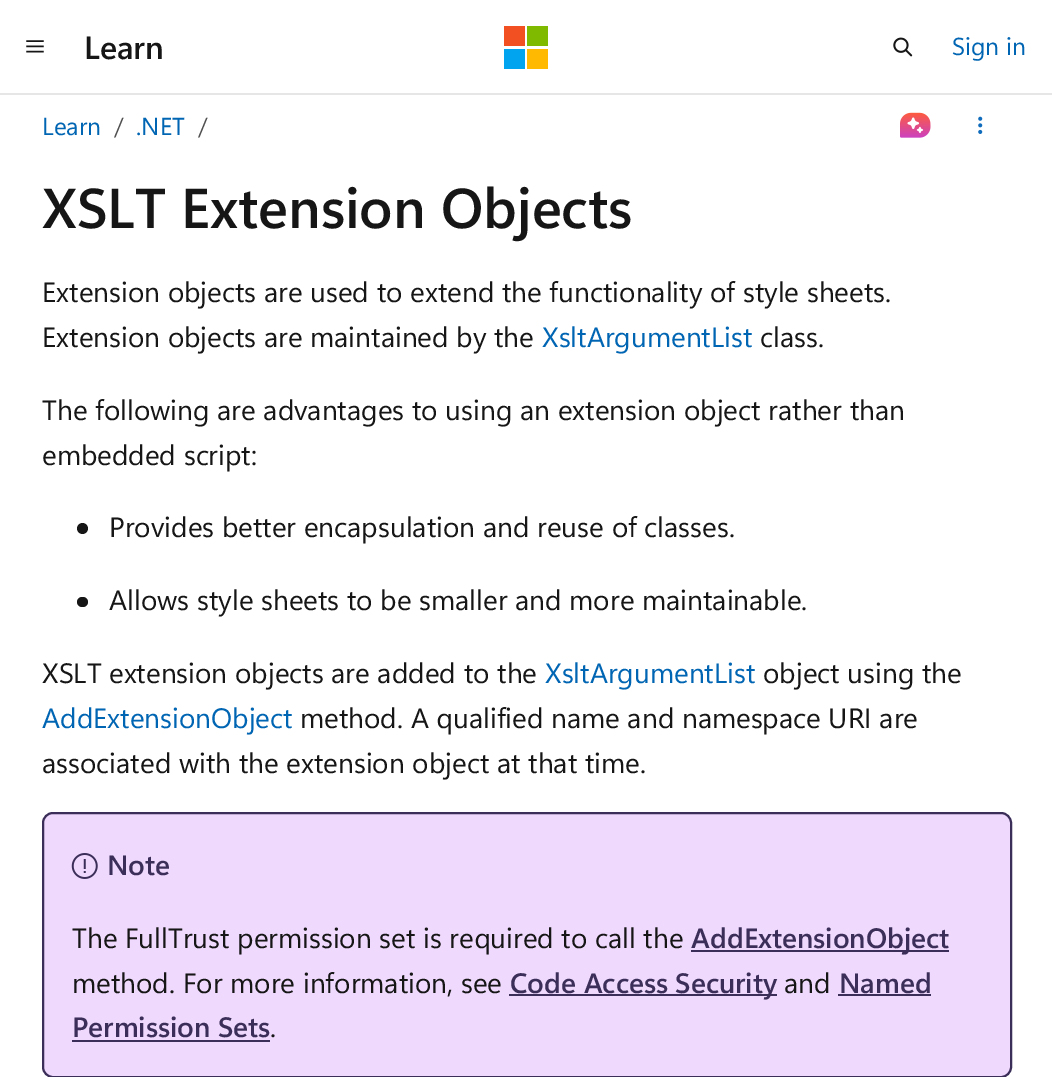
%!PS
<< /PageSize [1052 1077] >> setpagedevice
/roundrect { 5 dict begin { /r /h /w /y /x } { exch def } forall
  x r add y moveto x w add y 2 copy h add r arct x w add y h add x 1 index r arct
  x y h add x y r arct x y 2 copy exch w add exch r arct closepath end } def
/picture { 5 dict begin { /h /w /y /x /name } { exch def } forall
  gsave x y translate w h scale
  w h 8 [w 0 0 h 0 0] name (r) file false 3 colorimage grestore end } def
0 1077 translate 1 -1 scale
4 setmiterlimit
1 setgray
0 0 1052 1077 rectfill
0.902 setgray
0 93 1052 2 rectfill
(img1.rgb) 26 40 18 13 picture
/SegoeUI-SemiBold [32 0 0 -32 0 0] selectfont
0.086 setgray
84 59 moveto (Learn) show
0.949 0.314 0.133 setrgbcolor
504 26 21 20 rectfill
0.498 0.729 0 setrgbcolor
527 26 21 20 rectfill
0 0.643 0.937 setrgbcolor
504 49 21 20 rectfill
1 0.725 0 setrgbcolor
527 49 21 20 rectfill
(img2.rgb) 893 37 20 20 picture
/SegoeUI-Regular [24.5 0 0 -24.5 0 0] selectfont
0 0.396 0.702 setrgbcolor
952 55 moveto (Sign in) show
42 135 moveto (Learn) show
0.314 setgray
114 135 moveto (/) show
0 0.396 0.702 setrgbcolor
136 135 moveto (.NET) show
0.314 setgray
198 135 moveto (/) show
(img3.rgb) 900 112 31 26 picture
(img4.rgb) 978 116 5 18 picture
/SegoeUI-SemiBold [56 0 0 -56 0 0] selectfont
0.086 setgray
42 228 moveto (XSLT Extension Objects) show
/SegoeUI-Regular [28 0 0 -28 0 0] selectfont
42 302 moveto (Extension objects are used to extend the functionality of style sheets.) show
42 347 moveto (Extension objects are maintained by the) show
0 0.396 0.702 setrgbcolor
542 347 moveto (XsltArgumentList) show
0.086 setgray
760 347 moveto (class.) show
42 420 moveto (The following are advantages to using an extension object rather than) show
42 465 moveto (embedded script:) show
newpath 82.5 528.5 5.5 0 360 arc closepath fill
109 537 moveto (Provides better encapsulation and reuse of classes.) show
77 597 11 10 5 roundrect fill
109 610 moveto (Allows style sheets to be smaller and more maintainable.) show
42 683 moveto (XSLT extension objects are added to the) show
0 0.396 0.702 setrgbcolor
545 683 moveto (XsltArgumentList) show
0.086 setgray
763 683 moveto (object using the) show
0 0.396 0.702 setrgbcolor
42 728 moveto (AddExtensionObject) show
0.086 setgray
300 728 moveto (method. A qualified name and namespace URI are) show
42 773 moveto (associated with the extension object at that time.) show
0.937 0.851 0.992 setrgbcolor
43 813 968 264 10 roundrect gsave fill grestore
0.231 0.18 0.345 setrgbcolor
2 setlinewidth
stroke
(img5.rgb) 71 853 27 26 picture
/SegoeUI-SemiBold [28 0 0 -28 0 0] selectfont
107 875 moveto (Note) show
/SegoeUI-Regular [28 0 0 -28 0 0] selectfont
0.086 setgray
72 948 moveto (The FullTrust permission set is required to call the) show
0.231 0.18 0.345 setrgbcolor
691 950 258 2 rectfill
/SegoeUI-SemiBold [28 0 0 -28 0 0] selectfont
691 948 moveto (AddExtensionObject) show
/SegoeUI-Regular [28 0 0 -28 0 0] selectfont
0.086 setgray
72 993 moveto (method. For more information, see) show
0.231 0.18 0.345 setrgbcolor
509 994 268 2 rectfill
/SegoeUI-SemiBold [28 0 0 -28 0 0] selectfont
510 993 moveto (Code Access Security) show
/SegoeUI-Regular [28 0 0 -28 0 0] selectfont
0.086 setgray
784 993 moveto (and) show
/SegoeUI-SemiBold [28 0 0 -28 0 0] selectfont
0.231 0.18 0.345 setrgbcolor
839 993 moveto (Named) show
838 994 93 2 rectfill
72 1037 moveto (Permission Sets) show
72 1040 198 2 rectfill
/SegoeUI-Regular [28 0 0 -28 0 0] selectfont
0.086 setgray
270 1037 moveto (.) show
showpage
